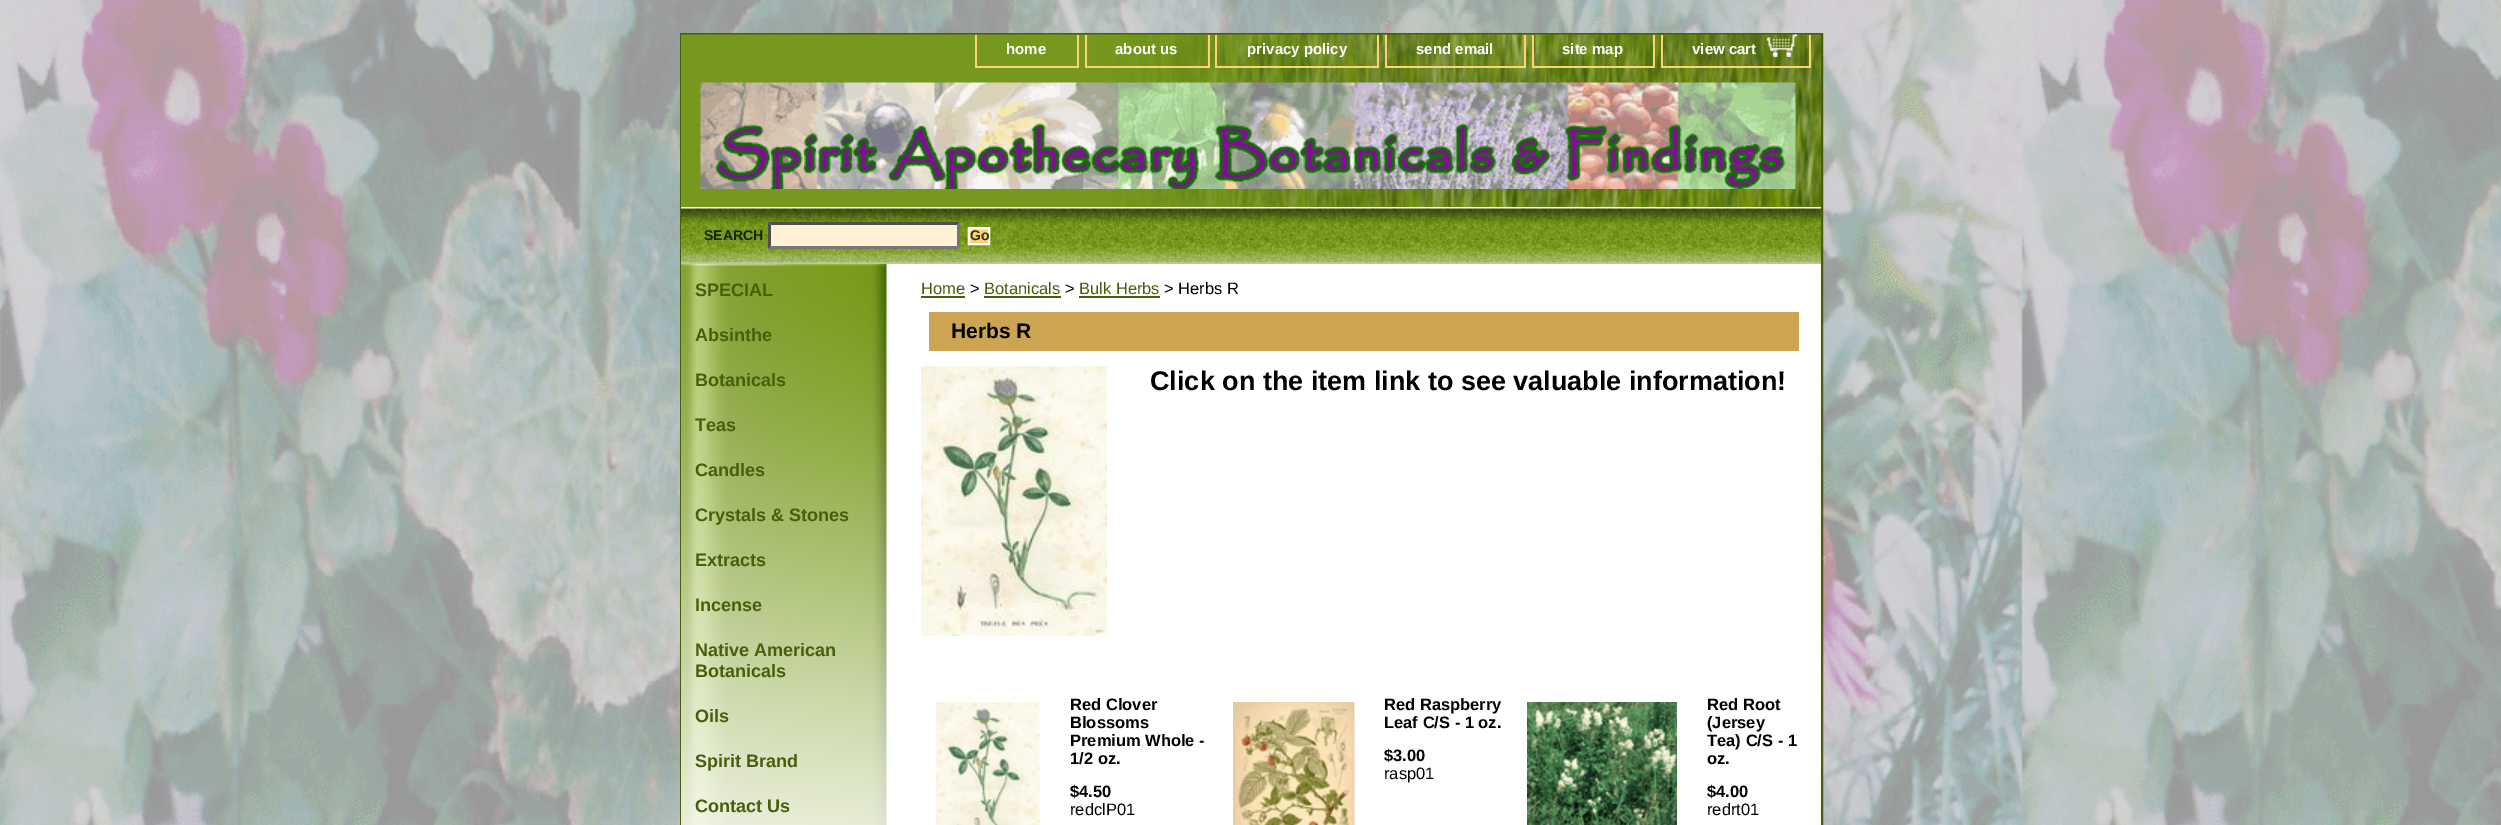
%!PS
<< /PageSize [2501 825] >> setpagedevice
/picture { 5 dict begin { /h /w /y /x /name } { exch def } forall
  gsave x y translate w h scale
  w h 8 [w 0 0 h 0 0] name (r) file false 3 colorimage grestore end } def
0 825 translate 1 -1 scale
4 setmiterlimit
1 setgray
0 0 2501 825 rectfill
(img1.rgb) 0 0 2501 825 picture
0.278 0.369 0.043 setrgbcolor
2 setlinewidth
681 34 1141 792 rectstroke
(img2.rgb) 681 34 1140 173 picture
1 0.824 0.447 setrgbcolor
1077 35 2 33 rectfill
975 66 104 2 rectfill
975 35 2 33 rectfill
/LiberationSans-Bold [15 0 0 -15 0 0] selectfont
1 setgray
1006 54 moveto (home) show
1 0.824 0.447 setrgbcolor
1208 35 2 33 rectfill
1085 66 124 2 rectfill
1085 35 2 33 rectfill
1 setgray
1115 54 moveto (about us) show
1 0.824 0.447 setrgbcolor
1377 35 2 33 rectfill
1215 66 164 2 rectfill
1215 35 2 33 rectfill
1 setgray
1247 54 moveto (privacy policy) show
1 0.824 0.447 setrgbcolor
1524 35 2 33 rectfill
1385 66 141 2 rectfill
1385 35 2 33 rectfill
1 setgray
1416 54 moveto (send email) show
1 0.824 0.447 setrgbcolor
1653 35 2 33 rectfill
1532 66 123 2 rectfill
1532 35 2 33 rectfill
1 setgray
1562 54 moveto (site map) show
1 0.824 0.447 setrgbcolor
1809 35 2 33 rectfill
1661 66 150 2 rectfill
1661 35 2 33 rectfill
(img3.rgb) 1767 34 30 23 picture
1 setgray
1692 54 moveto (view cart) show
(img4.rgb) 700 82 1096 107 picture
(img5.rgb) 681 207 1140 57 picture
/LiberationSans-Bold [14 0 0 -14 0 0] selectfont
0.055 0.145 0.031 setrgbcolor
704 240 moveto (SEARCH) show
1 0.945 0.831 setrgbcolor
768 222 192 27 rectfill
0.31 setgray
newpath 768 222 moveto 960 222 lineto 957 225 lineto 771 225 lineto closepath fill
0.463 setgray
newpath 960 222 moveto 960 249 lineto 957 246 lineto 957 225 lineto closepath fill
newpath 960 249 moveto 768 249 lineto 771 246 lineto 957 246 lineto closepath fill
0.31 setgray
newpath 768 249 moveto 768 222 lineto 771 225 lineto 771 246 lineto closepath fill
(img6.rgb) 967 228 21 17 picture
1 setgray
969 228 20 16 rectstroke
0.161 0.204 0.075 setrgbcolor
970 240 moveto (Go) show
1 setgray
886 264 935 561 rectfill
(img7.rgb) 681 264 206 561 picture
/LiberationSans-Bold [18 0 0 -18 0 0] selectfont
0.278 0.369 0.043 setrgbcolor
695 296 moveto (SPECIAL) show
695 341 moveto (Absinthe) show
695 386 moveto (Botanicals) show
695 431 moveto (Teas) show
695 476 moveto (Candles) show
695 521 moveto (Crystals & Stones) show
695 566 moveto (Extracts) show
695 611 moveto (Incense) show
695 656 moveto (Native American) show
695 677 moveto (Botanicals) show
695 722 moveto (Oils) show
695 767 moveto (Spirit Brand) show
695 812 moveto (Contact Us) show
/LiberationSans-Regular [16.5 0 0 -16.5 0 0] selectfont
921 294 moveto (Home) show
921 296 44 2 rectfill
0 setgray
970 294 moveto (>) show
0.278 0.369 0.043 setrgbcolor
984 294 moveto (Botanicals) show
984 296 77 2 rectfill
0 setgray
1065 294 moveto (>) show
0.278 0.369 0.043 setrgbcolor
1079 294 moveto (Bulk Herbs) show
1079 296 81 2 rectfill
0 setgray
1164 294 moveto (> Herbs R) show
0.804 0.643 0.318 setrgbcolor
929 312 870 39 rectfill
/LiberationSans-Bold [21 0 0 -21 0 0] selectfont
0 setgray
951 338 moveto (Herbs R) show
(img8.rgb) 921 366 186 270 picture
/LiberationSans-Bold [27 0 0 -27 0 0] selectfont
1150 390 moveto (Click on the item link to see valuable information!) show
(img9.rgb) 936 702 104 123 picture
/LiberationSans-Bold [16.5 0 0 -16.5 0 0] selectfont
1070 710 moveto (Red Clover) show
1070 728 moveto (Blossoms) show
1070 746 moveto (Premium Whole -) show
1070 764 moveto (1/2 oz.) show
1070 797 moveto ($4.50) show
/LiberationSans-Regular [16.5 0 0 -16.5 0 0] selectfont
1070 815 moveto (redclP01) show
(img10.rgb) 1233 702 122 123 picture
/LiberationSans-Bold [16.5 0 0 -16.5 0 0] selectfont
1384 710 moveto (Red Raspberry) show
1384 728 moveto (Leaf C/S - 1 oz.) show
1384 761 moveto ($3.00) show
/LiberationSans-Regular [16.5 0 0 -16.5 0 0] selectfont
1384 779 moveto (rasp01) show
(img11.rgb) 1527 702 150 123 picture
/LiberationSans-Bold [16.5 0 0 -16.5 0 0] selectfont
1707 710 moveto (Red Root) show
1707 728 moveto (\(Jersey) show
1707 746 moveto (Tea\) C/S - 1) show
1707 764 moveto (oz.) show
1707 797 moveto ($4.00) show
/LiberationSans-Regular [16.5 0 0 -16.5 0 0] selectfont
1707 815 moveto (redrt01) show
showpage
